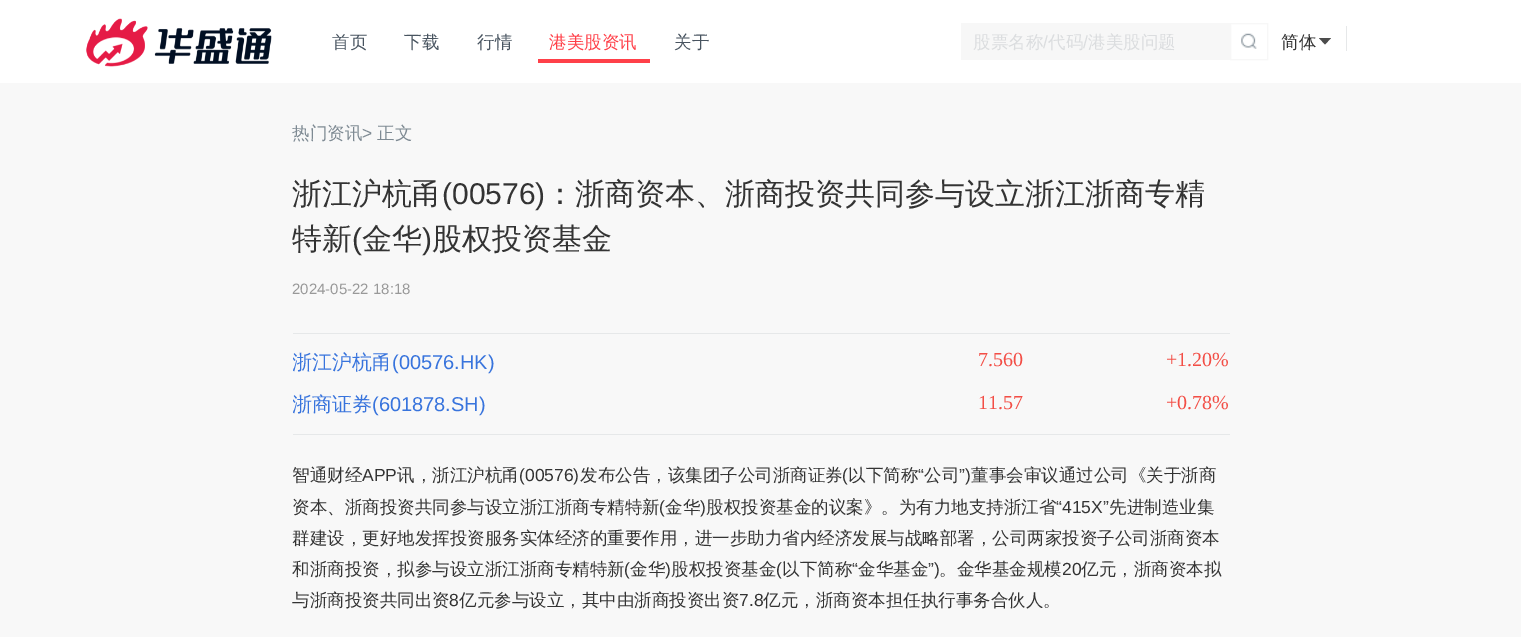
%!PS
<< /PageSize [1521 637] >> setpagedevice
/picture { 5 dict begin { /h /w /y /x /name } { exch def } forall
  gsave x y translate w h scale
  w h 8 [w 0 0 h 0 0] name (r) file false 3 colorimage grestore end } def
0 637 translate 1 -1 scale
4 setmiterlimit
0.973 setgray
0 0 1521 637 rectfill
1 setgray
0 0 1521 83 rectfill
(img1.rgb) 86 18 186 49 picture
/WenQuanYiZenHei-Medium [17.5 0 0 -17.5 0 0] selectfont
0.282 0.329 0.376 setrgbcolor
332 48 moveto (首页) show
404 48 moveto (下载) show
477 48 moveto (行情) show
1 0.251 0.286 setrgbcolor
549 48 moveto (港美股资讯) show
538 59 112 4 rectfill
0.282 0.329 0.376 setrgbcolor
674 48 moveto (关于) show
0.969 setgray
961 23 269 37 rectfill
0.859 0.867 0.875 setrgbcolor
973 48 moveto (股票名称) show
/LiberationSans-Regular [17.5 0 0 -17.5 0 0] selectfont
1043 48 moveto (/) show
/WenQuanYiZenHei-Medium [17.5 0 0 -17.5 0 0] selectfont
1048 48 moveto (代码) show
/LiberationSans-Regular [17.5 0 0 -17.5 0 0] selectfont
1083 48 moveto (/) show
/WenQuanYiZenHei-Medium [17.5 0 0 -17.5 0 0] selectfont
1088 48 moveto (港美股问题) show
0.969 setgray
1230.5 23.5 37 36 rectstroke
(img2.rgb) 1241 33 16 16 picture
0.2 setgray
1281 48 moveto (简体) show
0.298 setgray
newpath 1319 38 moveto 1331 38 lineto 1325 44.5 lineto closepath fill
0.902 0.91 0.914 setrgbcolor
1346 26 1 25 rectfill
0.494 0.541 0.576 setrgbcolor
292 139 moveto (热门资讯) show
/LiberationSans-Regular [17.5 0 0 -17.5 0 0] selectfont
362 139 moveto (>) show
/WenQuanYiZenHei-Medium [17.5 0 0 -17.5 0 0] selectfont
377 139 moveto (正文) show
/WenQuanYiZenHei-Medium [30 0 0 -30 0 0] selectfont
0.2 setgray
292 204 moveto (浙江沪杭甬) show
/LiberationSans-Regular [30 0 0 -30 0 0] selectfont
442 204 moveto (\(00576\)) show
/WenQuanYiZenHei-Medium [30 0 0 -30 0 0] selectfont
545 204 moveto (：浙商资本、浙商投资共同参与设立浙江浙商专精) show
292 249 moveto (特新) show
/LiberationSans-Regular [30 0 0 -30 0 0] selectfont
352 249 moveto (\() show
/WenQuanYiZenHei-Medium [30 0 0 -30 0 0] selectfont
362 249 moveto (金华) show
/LiberationSans-Regular [30 0 0 -30 0 0] selectfont
422 249 moveto (\)) show
/WenQuanYiZenHei-Medium [30 0 0 -30 0 0] selectfont
432 249 moveto (股权投资基金) show
/LiberationSans-Regular [15 0 0 -15 0 0] selectfont
0.6 setgray
292 294 moveto (2024-05-22 18:18) show
0.902 0.91 0.914 setrgbcolor
293 333 937 1 rectfill
293 434 937 1 rectfill
gsave
293 344 515 37 rectclip
/WenQuanYiZenHei-Medium [20 0 0 -20 0 0] selectfont
0.22 0.455 0.867 setrgbcolor
292 369 moveto (浙江沪杭甬) show
grestore
/LiberationSans-Regular [20 0 0 -20 0 0] selectfont
0.22 0.455 0.867 setrgbcolor
392 369 moveto (\(00576.HK\)) show
/LiberationSerif-Regular [20 0 0 -20 0 0] selectfont
0.953 0.306 0.275 setrgbcolor
978 366 moveto (7.560) show
1166 366 moveto (+1.20%) show
gsave
293 386 515 38 rectclip
/WenQuanYiZenHei-Medium [20 0 0 -20 0 0] selectfont
0.22 0.455 0.867 setrgbcolor
292 411 moveto (浙商证券) show
grestore
/LiberationSans-Regular [20 0 0 -20 0 0] selectfont
0.22 0.455 0.867 setrgbcolor
372 411 moveto (\(601878.SH\)) show
/LiberationSerif-Regular [20 0 0 -20 0 0] selectfont
0.953 0.306 0.275 setrgbcolor
978 409 moveto (11.57) show
1166 409 moveto (+0.78%) show
/WenQuanYiZenHei-Medium [17.5 0 0 -17.5 0 0] selectfont
0.2 setgray
292 481 moveto (智通财经) show
/LiberationSans-Regular [17.5 0 0 -17.5 0 0] selectfont
362 481 moveto (APP) show
/WenQuanYiZenHei-Medium [17.5 0 0 -17.5 0 0] selectfont
397 481 moveto (讯，浙江沪杭甬) show
/LiberationSans-Regular [17.5 0 0 -17.5 0 0] selectfont
519 481 moveto (\(00576\)) show
/WenQuanYiZenHei-Medium [17.5 0 0 -17.5 0 0] selectfont
580 481 moveto (发布公告，该集团子公司浙商证券) show
/LiberationSans-Regular [17.5 0 0 -17.5 0 0] selectfont
842 481 moveto (\() show
/WenQuanYiZenHei-Medium [17.5 0 0 -17.5 0 0] selectfont
848 481 moveto (以下简称) show
/LiberationSans-Regular [17.5 0 0 -17.5 0 0] selectfont
918 481 moveto (“) show
/WenQuanYiZenHei-Medium [17.5 0 0 -17.5 0 0] selectfont
924 481 moveto (公司) show
/LiberationSans-Regular [17.5 0 0 -17.5 0 0] selectfont
959 481 moveto (”\)) show
/WenQuanYiZenHei-Medium [17.5 0 0 -17.5 0 0] selectfont
971 481 moveto (董事会审议通过公司《关于浙商) show
292 513 moveto (资本、浙商投资共同参与设立浙江浙商专精特新) show
/LiberationSans-Regular [17.5 0 0 -17.5 0 0] selectfont
659 513 moveto (\() show
/WenQuanYiZenHei-Medium [17.5 0 0 -17.5 0 0] selectfont
665 513 moveto (金华) show
/LiberationSans-Regular [17.5 0 0 -17.5 0 0] selectfont
700 513 moveto (\)) show
/WenQuanYiZenHei-Medium [17.5 0 0 -17.5 0 0] selectfont
706 513 moveto (股权投资基金的议案》。为有力地支持浙江省) show
/LiberationSans-Regular [17.5 0 0 -17.5 0 0] selectfont
1056 513 moveto (“415X”) show
/WenQuanYiZenHei-Medium [17.5 0 0 -17.5 0 0] selectfont
1109 513 moveto (先进制造业集) show
292 544 moveto (群建设，更好地发挥投资服务实体经济的重要作用，进一步助力省内经济发展与战略部署，公司两家投资子公司浙商资本) show
292 575 moveto (和浙商投资，拟参与设立浙江浙商专精特新) show
/LiberationSans-Regular [17.5 0 0 -17.5 0 0] selectfont
624 575 moveto (\() show
/WenQuanYiZenHei-Medium [17.5 0 0 -17.5 0 0] selectfont
630 575 moveto (金华) show
/LiberationSans-Regular [17.5 0 0 -17.5 0 0] selectfont
665 575 moveto (\)) show
/WenQuanYiZenHei-Medium [17.5 0 0 -17.5 0 0] selectfont
671 575 moveto (股权投资基金) show
/LiberationSans-Regular [17.5 0 0 -17.5 0 0] selectfont
776 575 moveto (\() show
/WenQuanYiZenHei-Medium [17.5 0 0 -17.5 0 0] selectfont
782 575 moveto (以下简称) show
/LiberationSans-Regular [17.5 0 0 -17.5 0 0] selectfont
852 575 moveto (“) show
/WenQuanYiZenHei-Medium [17.5 0 0 -17.5 0 0] selectfont
858 575 moveto (金华基金) show
/LiberationSans-Regular [17.5 0 0 -17.5 0 0] selectfont
928 575 moveto (”\)) show
/WenQuanYiZenHei-Medium [17.5 0 0 -17.5 0 0] selectfont
939 575 moveto (。金华基金规模) show
/LiberationSans-Regular [17.5 0 0 -17.5 0 0] selectfont
1062 575 moveto (20) show
/WenQuanYiZenHei-Medium [17.5 0 0 -17.5 0 0] selectfont
1081 575 moveto (亿元，浙商资本拟) show
292 606 moveto (与浙商投资共同出资) show
/LiberationSans-Regular [17.5 0 0 -17.5 0 0] selectfont
449 606 moveto (8) show
/WenQuanYiZenHei-Medium [17.5 0 0 -17.5 0 0] selectfont
459 606 moveto (亿元参与设立，其中由浙商投资出资) show
/LiberationSans-Regular [17.5 0 0 -17.5 0 0] selectfont
739 606 moveto (7.8) show
/WenQuanYiZenHei-Medium [17.5 0 0 -17.5 0 0] selectfont
763 606 moveto (亿元，浙商资本担任执行事务合伙人。) show
showpage
